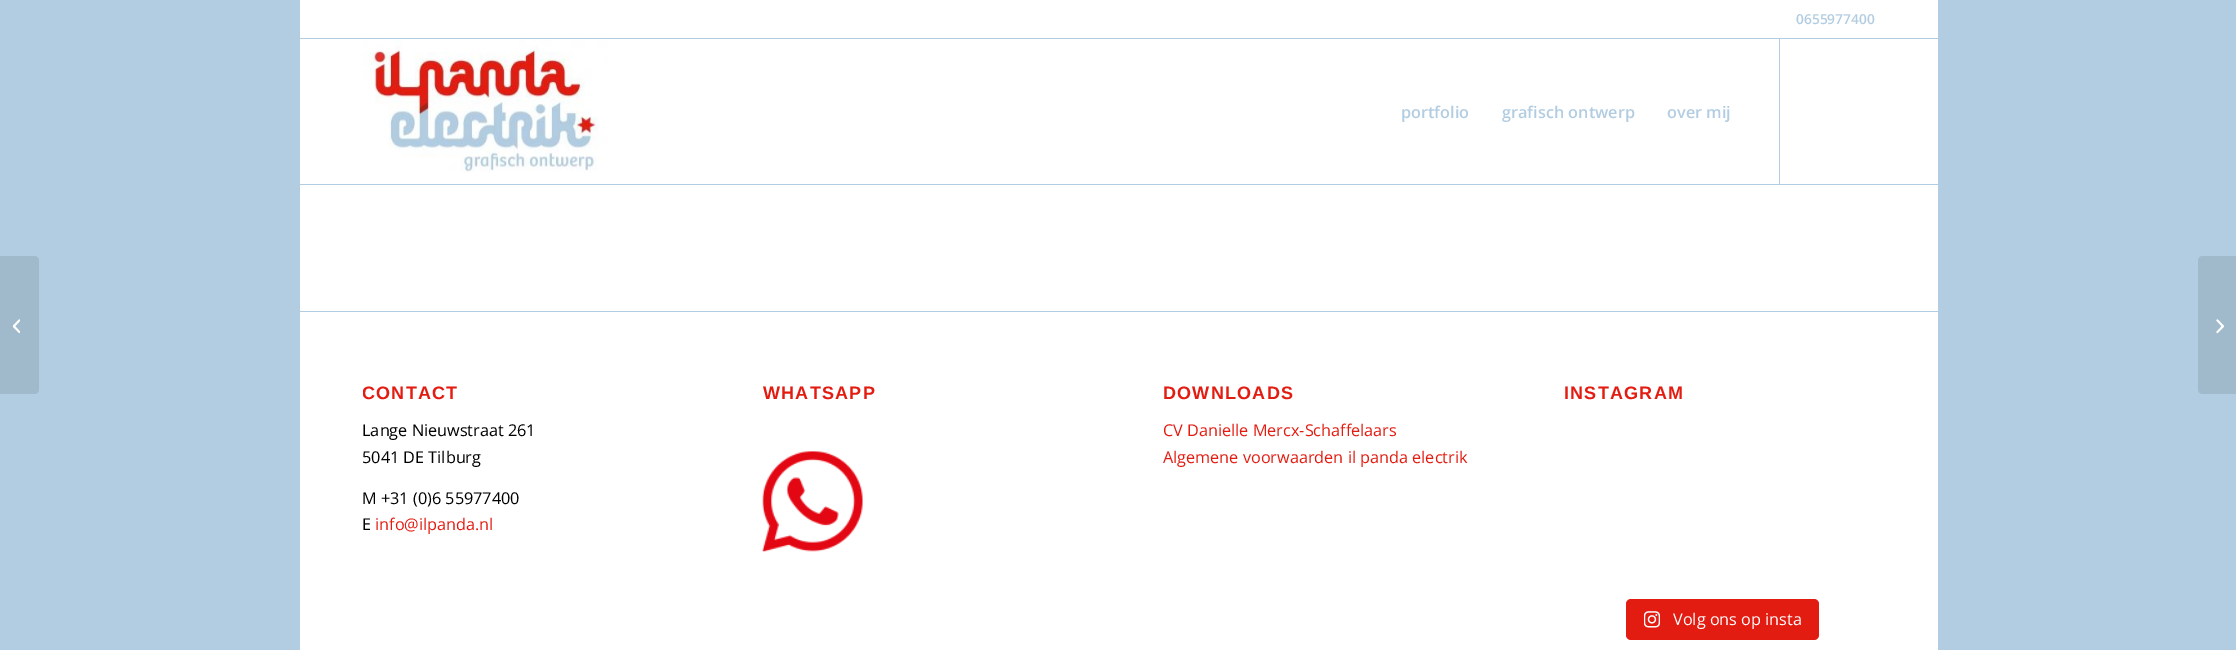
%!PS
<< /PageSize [2236 650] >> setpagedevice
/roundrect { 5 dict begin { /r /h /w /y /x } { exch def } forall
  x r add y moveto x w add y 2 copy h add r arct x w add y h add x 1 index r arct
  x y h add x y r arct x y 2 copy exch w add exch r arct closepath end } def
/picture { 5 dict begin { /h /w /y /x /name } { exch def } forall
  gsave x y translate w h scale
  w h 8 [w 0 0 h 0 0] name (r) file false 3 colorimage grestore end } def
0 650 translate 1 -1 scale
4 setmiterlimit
0.698 0.804 0.886 setrgbcolor
0 0 2236 650 rectfill
1 setgray
300 0 1638 38 rectfill
/OpenSans-SemiBold [13.75 0 0 -13.75 0 0] selectfont
0.698 0.804 0.886 setrgbcolor
1796 24 moveto (0655977400) show
1 setgray
300 39 1638 145 rectfill
(img1.rgb) 362 39 246 134 picture
0.698 0.804 0.886 setrgbcolor
1779 39 1 145 rectfill
/OpenSans-SemiBold [16.25 0 0 -16.25 0 0] selectfont
1401 118 moveto (portfolio) show
1502 118 moveto (grafisch ontwerp) show
1667 118 moveto (over mij) show
0.627 0.725 0.796 setrgbcolor
newpath 0 256 moveto 34 256 lineto 37 256 39 258 39 261 curveto 39 389 lineto 39 392 37 394 34 394 curveto 0 394 lineto closepath fill
(img2.rgb) 13 319 7 15 picture
newpath 2203 256 moveto 2236 256 lineto 2236 394 lineto 2203 394 lineto 2200 394 2198 392 2198 389 curveto 2198 261 lineto 2198 258 2200 256 2203 256 curveto closepath fill
(img3.rgb) 2216 319 8 15 picture
1 setgray
300 185 1638 465 rectfill
0.698 0.804 0.886 setrgbcolor
300 311 1638 1 rectfill
gsave
363 369 310 184 rectclip
/LiberationSans-Bold [18 0 0 -18 0 0] selectfont
0.89 0.11 0.071 setrgbcolor
362 399 moveto 1.25 0 (CONTACT) ashow
grestore
/OpenSans-Regular [16.25 0 0 -16.25 0 0] selectfont
0 setgray
362 436 moveto (Lange Nieuwstraat 261) show
362 463 moveto (5041 DE Tilburg) show
362 504 moveto (M +31 \(0\)6 55977400) show
362 530 moveto (E) show
0.89 0.11 0.071 setrgbcolor
375 530 moveto (info@ilpanda.nl) show
/LiberationSans-Bold [18 0 0 -18 0 0] selectfont
763 399 moveto 1.25 0 (WHATSAPP) ashow
(img4.rgb) 762 451 101 101 picture
1163 399 moveto 1.25 0 (DOWNLOADS) ashow
/OpenSans-Regular [16.25 0 0 -16.25 0 0] selectfont
1163 436 moveto (CV Danielle Mercx-Schaffelaars) show
1163 463 moveto (Algemene voorwaarden il panda electrik) show
/LiberationSans-Bold [18 0 0 -18 0 0] selectfont
1564 399 moveto 1.25 0 (INSTAGRAM) ashow
1626 599 193 41 5 roundrect fill
(img5.rgb) 1644 611 16 17 picture
/OpenSans-Regular [16.25 0 0 -16.25 0 0] selectfont
1 setgray
1673 625 moveto (Volg ons op insta) show
showpage
